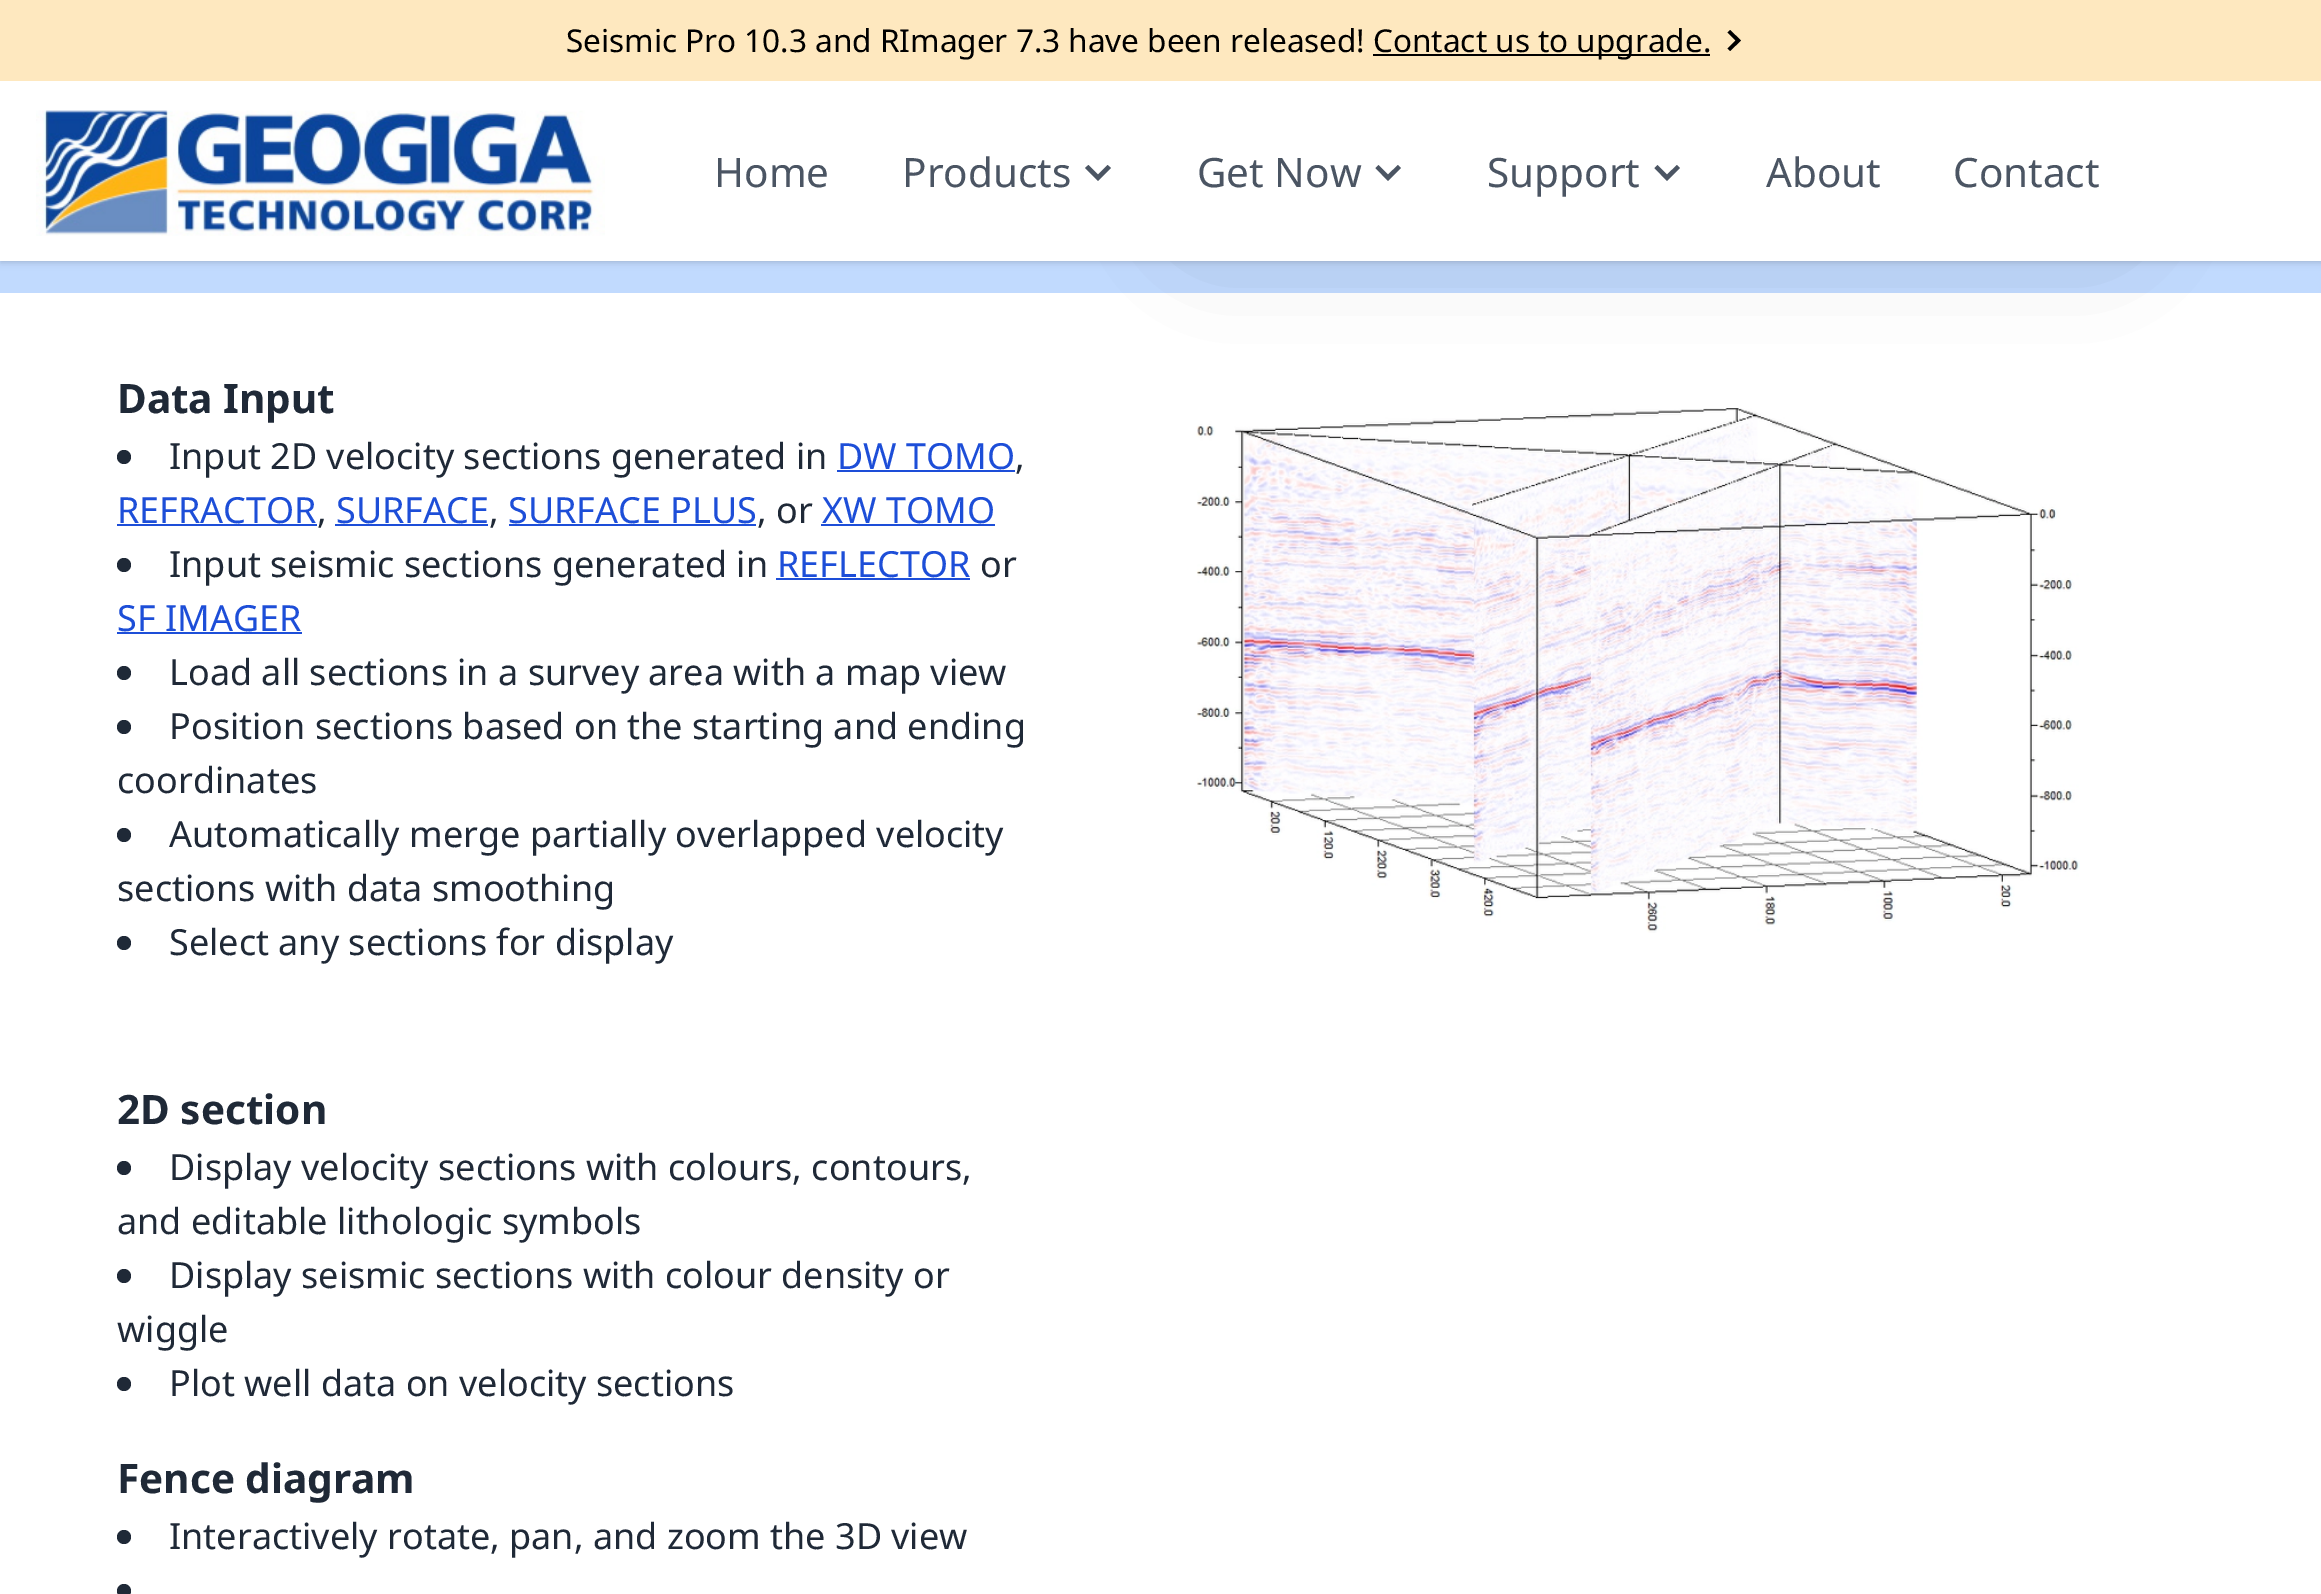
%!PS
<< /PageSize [2321 1594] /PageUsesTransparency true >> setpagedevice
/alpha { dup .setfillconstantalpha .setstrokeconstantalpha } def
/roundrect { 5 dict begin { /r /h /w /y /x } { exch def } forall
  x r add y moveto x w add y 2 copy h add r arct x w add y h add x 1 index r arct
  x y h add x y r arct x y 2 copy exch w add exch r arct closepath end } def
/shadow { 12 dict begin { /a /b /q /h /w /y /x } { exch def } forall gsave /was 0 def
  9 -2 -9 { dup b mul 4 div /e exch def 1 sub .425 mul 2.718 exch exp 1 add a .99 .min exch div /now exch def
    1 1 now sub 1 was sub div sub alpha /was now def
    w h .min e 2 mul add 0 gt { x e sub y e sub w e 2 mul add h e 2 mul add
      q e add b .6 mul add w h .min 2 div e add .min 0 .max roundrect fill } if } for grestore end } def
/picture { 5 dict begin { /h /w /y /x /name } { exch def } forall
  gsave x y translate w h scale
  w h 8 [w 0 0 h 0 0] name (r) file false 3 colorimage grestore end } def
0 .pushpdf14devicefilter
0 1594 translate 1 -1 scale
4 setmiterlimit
1 setgray
0 0 2321 1594 rectfill
0.757 0.855 0.996 setrgbcolor
0 261 2321 32 rectfill
0 setgray
2 5 2318 256 0 2 0.1 shadow
0 2 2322 261 0 3.5 0.1 shadow
1206 -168 900 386 0 56 0.25 shadow
1 setgray
0 81 2321 180 rectfill
0.996 0.91 0.749 setrgbcolor
0 0 2321 81 rectfill
/NotoSans-Regular [31.5 0 0 -31.5 0 0] selectfont
0 setgray
566 52 moveto (Seismic Pro 10.3 and RImager 7.3 have been released!) show
1373 54 337 2 rectfill
1373 52 moveto (Contact us to upgrade.) show
newpath 1730 51 moveto 1741 40.5 lineto 1730 30 lineto 1727.5 32.5 lineto 1735.5 40.5 lineto 1727.5 48.5 lineto closepath fill
(img1.rgb) 36 110 569 126 picture
/NotoSans-Regular [40.5 0 0 -40.5 0 0] selectfont
0.294 0.333 0.388 setrgbcolor
714 187 moveto (Home) show
902 187 moveto (Products) show
newpath 1107.5 165 moveto 1098 174.5 lineto 1088.5 165 lineto 1085 168 lineto 1098 181 lineto 1111 168 lineto closepath fill
1197 187 moveto (Get Now) show
newpath 1398 165 moveto 1388 174.5 lineto 1378.5 165 lineto 1375.5 168 lineto 1388 181 lineto 1401 168 lineto closepath fill
1487 187 moveto (Support) show
newpath 1677 165 moveto 1667 174.5 lineto 1657.5 165 lineto 1654.5 168 lineto 1667 181 lineto 1680 168 lineto closepath fill
1766 187 moveto (About) show
1953 187 moveto (Contact) show
/NotoSans-Bold [40.5 0 0 -40.5 0 0] selectfont
0.122 0.161 0.216 setrgbcolor
117 413 moveto (Data Input) show
newpath 124 457 7 0 360 arc closepath fill
/NotoSans-Regular [36 0 0 -36 0 0] selectfont
169 469 moveto (Input 2D velocity sections generated in) show
0.114 0.306 0.847 setrgbcolor
837 469 moveto (DW TOMO) show
837 470 178 2 rectfill
0.122 0.161 0.216 setrgbcolor
1015 469 moveto (,) show
0.114 0.306 0.847 setrgbcolor
117 523 moveto (REFRACTOR) show
117 524 200 2 rectfill
0.122 0.161 0.216 setrgbcolor
317 523 moveto (,) show
0.114 0.306 0.847 setrgbcolor
336 523 moveto (SURFACE) show
335 524 153 2 rectfill
0.122 0.161 0.216 setrgbcolor
489 523 moveto (,) show
0.114 0.306 0.847 setrgbcolor
508 523 moveto (SURFACE PLUS) show
509 524 247 2 rectfill
0.122 0.161 0.216 setrgbcolor
757 523 moveto (, or) show
0.114 0.306 0.847 setrgbcolor
822 523 moveto (XW TOMO) show
821 524 174 2 rectfill
0.122 0.161 0.216 setrgbcolor
newpath 124 565 7 0 360 arc closepath fill
169 577 moveto (Input seismic sections generated in) show
0.114 0.306 0.847 setrgbcolor
777 577 moveto (REFLECTOR) show
776 578 194 2 rectfill
0.122 0.161 0.216 setrgbcolor
980 577 moveto (or) show
0.114 0.306 0.847 setrgbcolor
117 631 moveto (SF IMAGER) show
117 632 185 2 rectfill
0.122 0.161 0.216 setrgbcolor
newpath 124 673 7 0 360 arc closepath fill
169 685 moveto (Load all sections in a survey area with a map view) show
newpath 124 727 7 0 360 arc closepath fill
169 739 moveto (Position sections based on the starting and ending) show
117 793 moveto (coordinates) show
newpath 124 835 7 0 360 arc closepath fill
169 847 moveto (Automatically merge partially overlapped velocity) show
117 901 moveto (sections with data smoothing) show
newpath 124 943 7 0 360 arc closepath fill
169 955 moveto (Select any sections for display) show
(img2.rgb) 1196 408 884 525 picture
/NotoSans-Bold [40.5 0 0 -40.5 0 0] selectfont
117 1124 moveto (2D section) show
newpath 124 1168 7 0 360 arc closepath fill
/NotoSans-Regular [36 0 0 -36 0 0] selectfont
169 1180 moveto (Display velocity sections with colours, contours,) show
117 1234 moveto (and editable lithologic symbols) show
newpath 124 1276 7 0 360 arc closepath fill
169 1288 moveto (Display seismic sections with colour density or) show
117 1342 moveto (wiggle) show
newpath 124 1384 7 0 360 arc closepath fill
169 1396 moveto (Plot well data on velocity sections) show
/NotoSans-Bold [40.5 0 0 -40.5 0 0] selectfont
117 1493 moveto (Fence diagram) show
newpath 124 1537 7 0 360 arc closepath fill
/NotoSans-Regular [36 0 0 -36 0 0] selectfont
169 1549 moveto (Interactively rotate, pan, and zoom the 3D view) show
newpath 124 1591 7 0 360 arc closepath fill
.poppdf14devicefilter showpage
